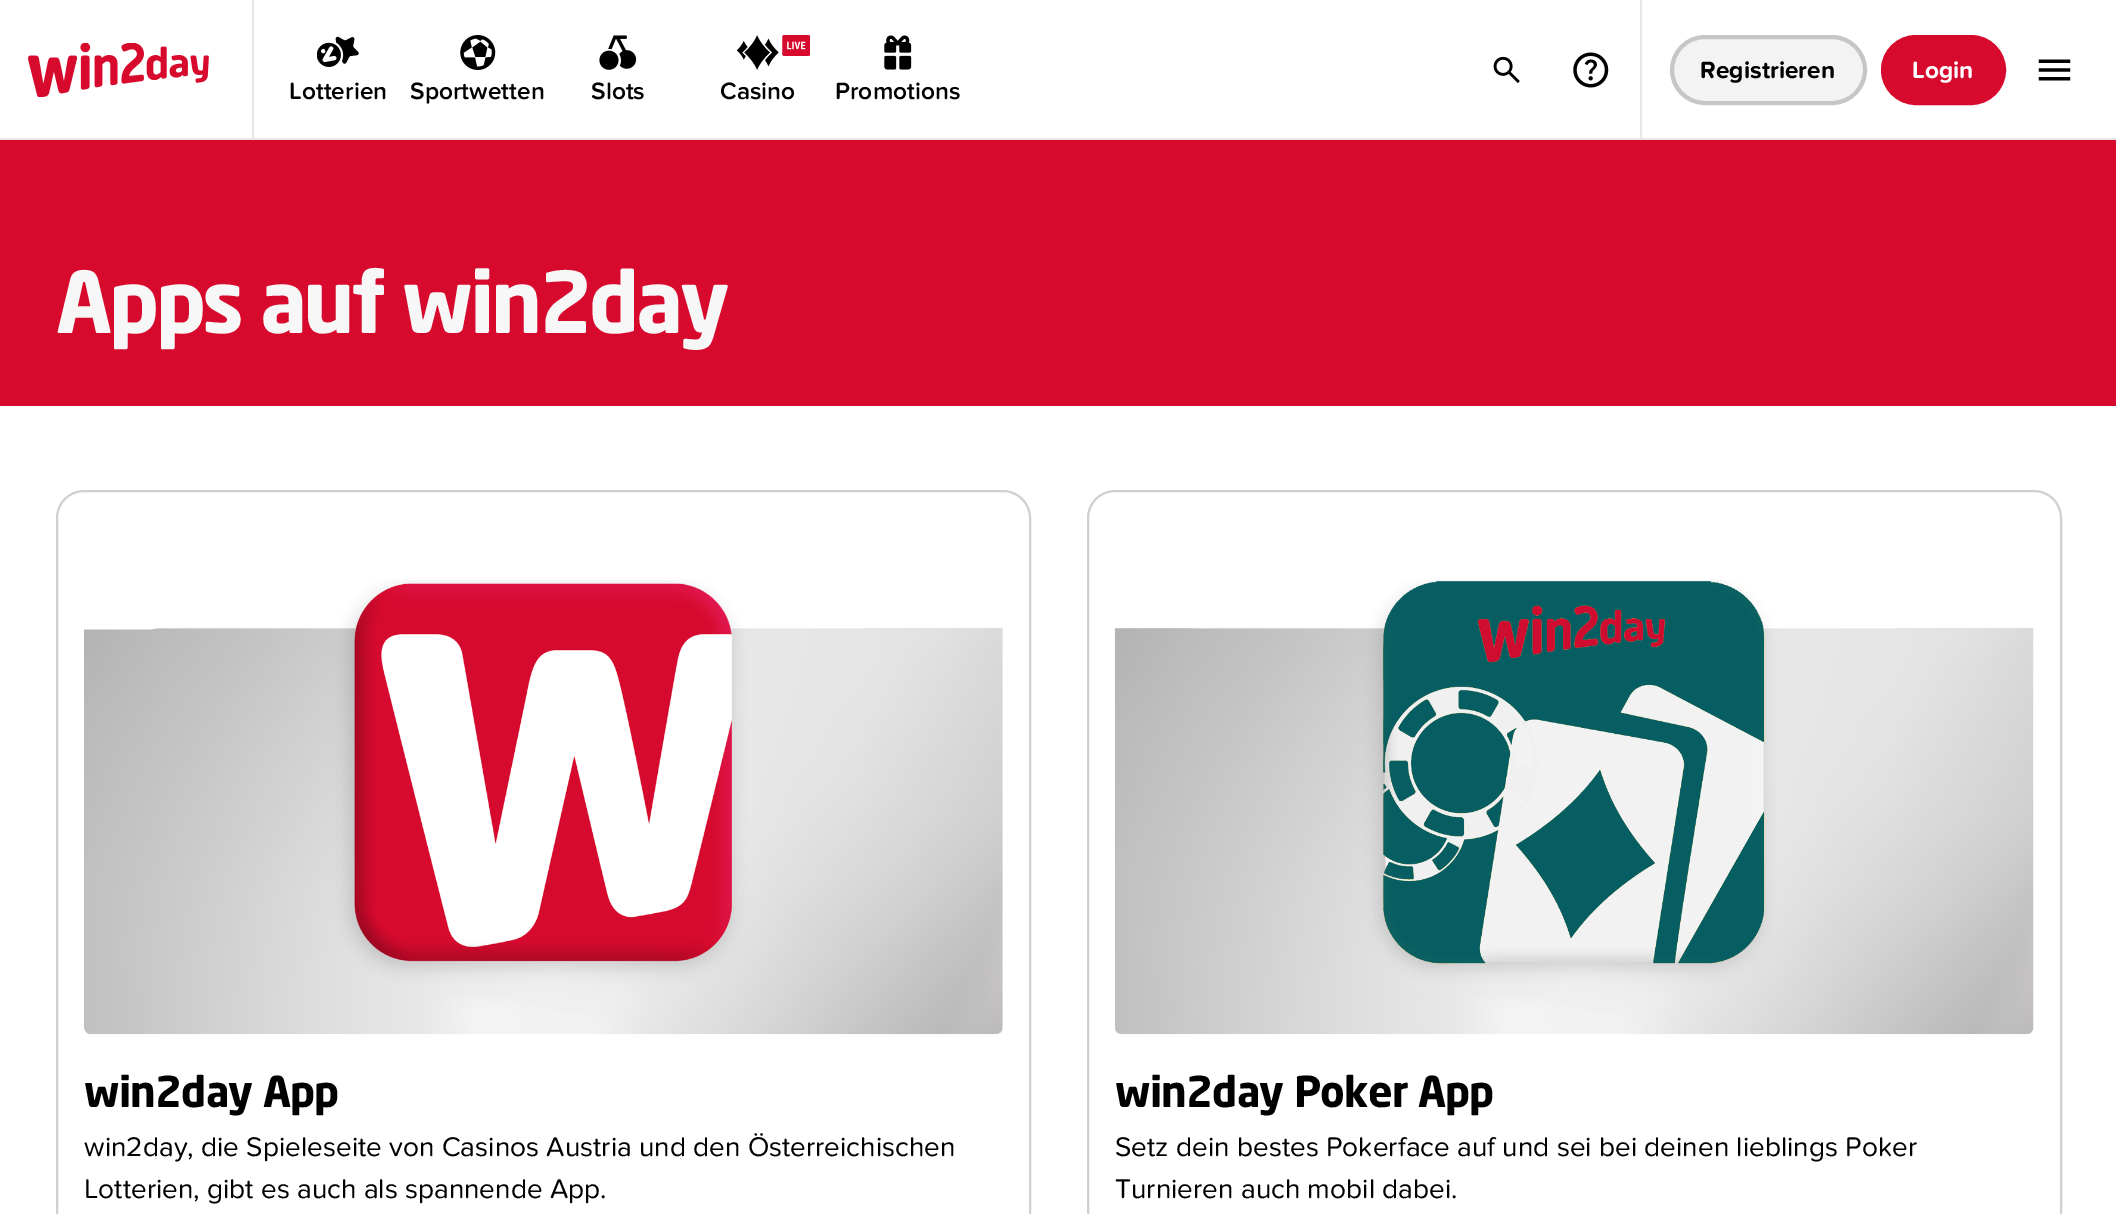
%!PS
<< /PageSize [2116 1214] /PageUsesTransparency true >> setpagedevice
/alpha { dup .setfillconstantalpha .setstrokeconstantalpha } def
/roundrect { 5 dict begin { /r /h /w /y /x } { exch def } forall
  x r add y moveto x w add y 2 copy h add r arct x w add y h add x 1 index r arct
  x y h add x y r arct x y 2 copy exch w add exch r arct closepath end } def
/picture { 5 dict begin { /h /w /y /x /name } { exch def } forall
  gsave x y translate w h scale
  w h 8 [w 0 0 h 0 0] name (r) file false 3 colorimage grestore end } def
0 .pushpdf14devicefilter
0 1214 translate 1 -1 scale
4 setmiterlimit
1 setgray
0 0 2116 1214 rectfill
0.91 setgray
0 138 2116 2 rectfill
1640 0 2 138 rectfill
(img1.rgb) 1493 56 27 27 picture
(img2.rgb) 1573 52 36 36 picture
0.953 setgray
1670 35 197 70 35 roundrect fill
0.2 alpha
0.078 setgray
4 setlinewidth
1672 37 193 66 33 roundrect stroke
/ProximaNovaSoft-Bold [24.5 0 0 -24.5 0 0] selectfont
1 alpha
0 setgray
1700 78 moveto (Registrieren) show
0.843 0.039 0.176 setrgbcolor
1883 37 121 66 33 roundrect gsave fill grestore
stroke
1 setgray
1912 78 moveto (Login) show
(img3.rgb) 2038 59 33 22 picture
0.91 setgray
252 0 2 138 rectfill
(img4.rgb) 28 43 181 54 picture
(img5.rgb) 317 36 42 31 picture
/ProximaNovaSoft-SemiBold [24.5 0 0 -24.5 0 0] selectfont
0 setgray
289 99 moveto (Lotterien) show
(img6.rgb) 460 35 36 35 picture
410 99 moveto (Sportwetten) show
(img7.rgb) 599 35 38 35 picture
591 99 moveto (Slots) show
(img8.rgb) 737 35 42 35 picture
(img9.rgb) 782 35 28 21 picture
720 99 moveto (Casino) show
(img10.rgb) 884 35 28 35 picture
835 99 moveto (Promotions) show
0.843 0.039 0.176 setrgbcolor
0 140 2116 266 rectfill
/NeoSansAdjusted-Bold [84 0 0 -84 0 0] selectfont
0.969 setgray
56 333 moveto -3.4 0 (Apps auf win2day) ashow
(img11.rgb) 84 579 919 456 picture
0.816 setgray
2 setlinewidth
57 491 973 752 27 roundrect stroke
/NeoSansAdjusted-Bold [42 0 0 -42 0 0] selectfont
0 setgray
84 1107 moveto -0.8 0 (win2day App) ashow
/ProximaNovaSoft-Regular [28 0 0 -28 0 0] selectfont
84 1156 moveto (win2day, die Spieleseite von Casinos Austria und den Österreichischen) show
84 1198 moveto (Lotterien, gibt es auch als spannende App.) show
(img12.rgb) 1114 579 920 456 picture
0.816 setgray
1088 491 973 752 27 roundrect stroke
/NeoSansAdjusted-Bold [42 0 0 -42 0 0] selectfont
0 setgray
1115 1107 moveto -0.8 0 (win2day Poker App) ashow
/ProximaNovaSoft-Regular [28 0 0 -28 0 0] selectfont
1115 1156 moveto (Setz dein bestes Pokerface auf und sei bei deinen lieblings Poker) show
1115 1198 moveto (Turnieren auch mobil dabei.) show
.poppdf14devicefilter showpage
